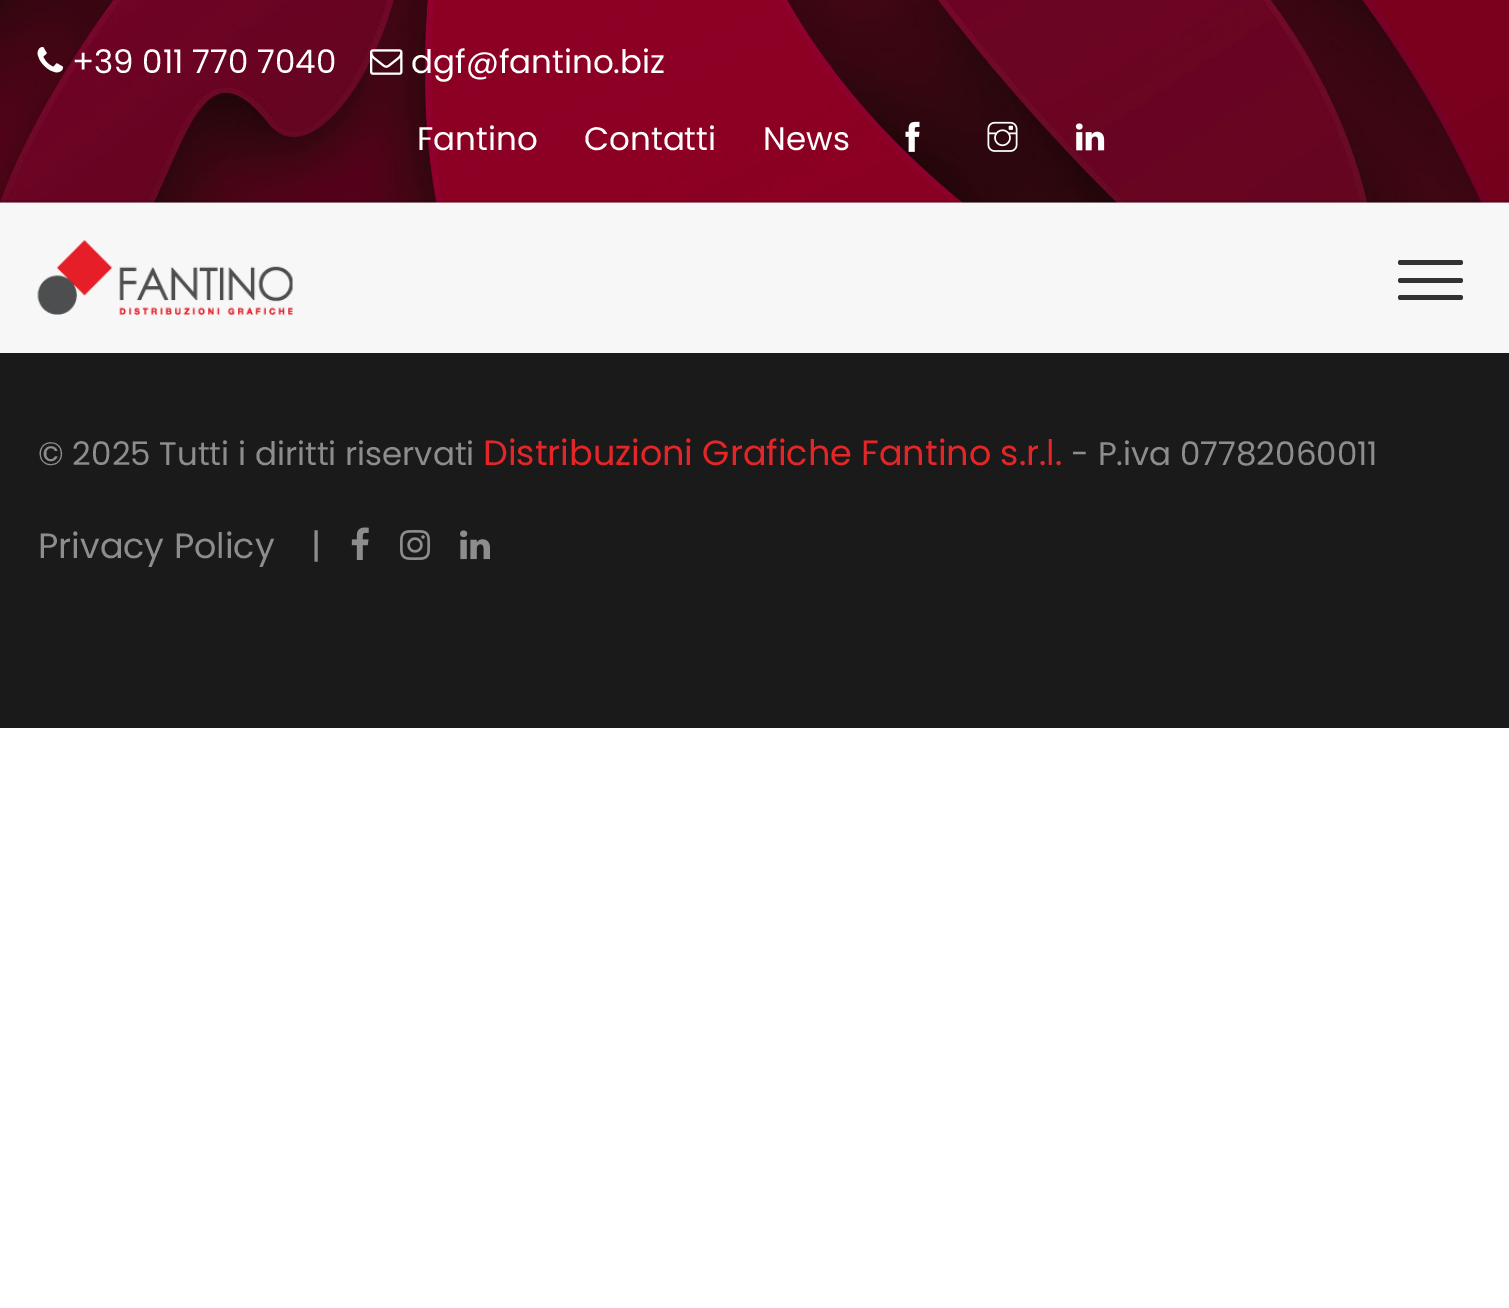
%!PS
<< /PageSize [1509 1308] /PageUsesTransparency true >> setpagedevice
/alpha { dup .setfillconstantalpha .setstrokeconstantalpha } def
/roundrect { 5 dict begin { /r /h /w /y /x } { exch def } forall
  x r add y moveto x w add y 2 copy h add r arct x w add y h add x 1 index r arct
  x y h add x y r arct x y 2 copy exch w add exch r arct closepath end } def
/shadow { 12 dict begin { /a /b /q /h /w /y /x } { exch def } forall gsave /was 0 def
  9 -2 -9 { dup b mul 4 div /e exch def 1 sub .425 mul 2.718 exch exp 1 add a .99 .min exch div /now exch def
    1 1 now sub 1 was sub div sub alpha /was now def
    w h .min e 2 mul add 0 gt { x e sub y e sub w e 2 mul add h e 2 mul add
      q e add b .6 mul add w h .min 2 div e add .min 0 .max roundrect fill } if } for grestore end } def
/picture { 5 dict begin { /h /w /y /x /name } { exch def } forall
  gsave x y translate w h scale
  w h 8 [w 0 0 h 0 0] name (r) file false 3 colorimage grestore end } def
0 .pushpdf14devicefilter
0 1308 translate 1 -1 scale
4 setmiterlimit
1 setgray
0 0 1509 1308 rectfill
0.102 setgray
0 353 1509 375 rectfill
0 setgray
0 0 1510 353 0 19 0.05 shadow
0.969 setgray
0 202 1509 151 rectfill
(img1.rgb) 0 0 1509 203 picture
0.1 alpha
0 setgray
0 200 1509 3 rectfill
1 alpha
(img2.rgb) 37 47 26 26 picture
/Poppins-Regular [32.5 0 0 -32.5 0 0] selectfont
1 setgray
72 73 moveto (+39 011 770 7040) show
(img3.rgb) 370 49 33 26 picture
411 73 moveto (dgf@fantino.biz) show
417 150 moveto (Fantino) show
584 150 moveto (Contatti) show
763 150 moveto (News) show
(img4.rgb) 905 121 15 31 picture
(img5.rgb) 987 121 31 31 picture
(img6.rgb) 1075 123 30 28 picture
(img7.rgb) 37 240 256 75 picture
0.196 setgray
1398 260 65 5 2.5 roundrect fill
1398 278 65 5 2.5 roundrect fill
1398 295 65 5 2.5 roundrect fill
0.553 setgray
38 465 moveto (© 2025 Tutti i diritti riservati) show
/Poppins-Regular [35 0 0 -35 0 0] selectfont
0.898 0.149 0.157 setrgbcolor
483 465 moveto (Distribuzioni Grafiche Fantino s.r.l.) show
/Poppins-Regular [32.5 0 0 -32.5 0 0] selectfont
0.553 setgray
1071 465 moveto (- P.iva 07782060011) show
/Poppins-Regular [35 0 0 -35 0 0] selectfont
38 558 moveto (Privacy Policy) show
311 558 moveto (|) show
(img8.rgb) 351 527 18 33 picture
(img9.rgb) 400 530 30 30 picture
(img10.rgb) 460 530 30 30 picture
.poppdf14devicefilter showpage
